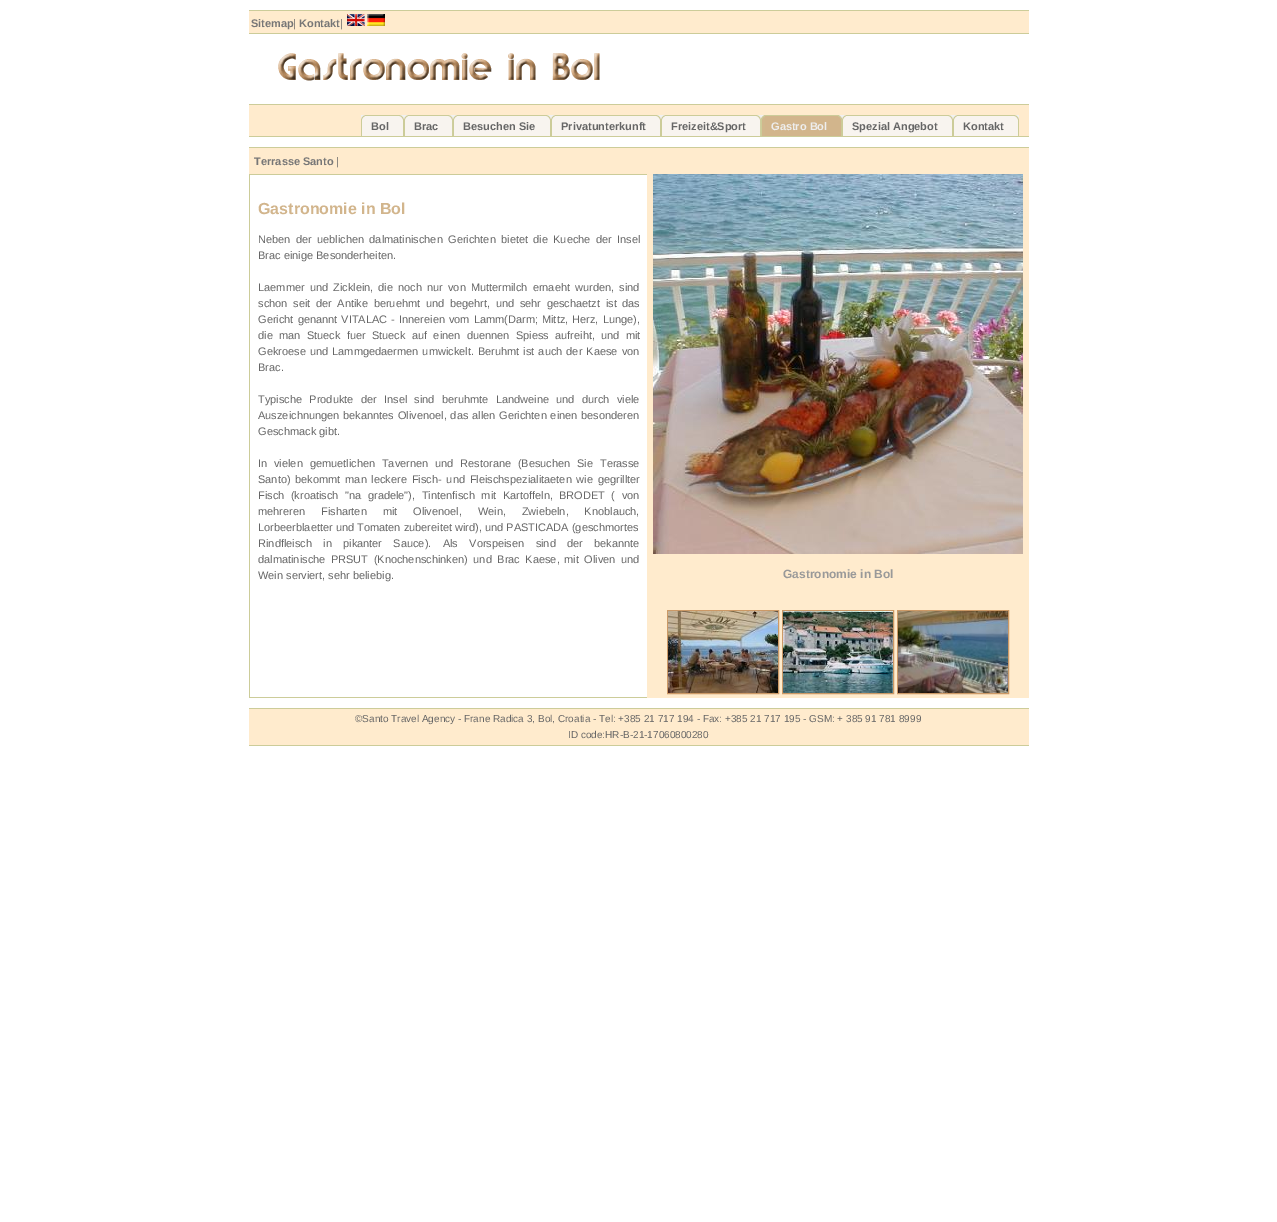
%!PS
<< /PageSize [1277 1222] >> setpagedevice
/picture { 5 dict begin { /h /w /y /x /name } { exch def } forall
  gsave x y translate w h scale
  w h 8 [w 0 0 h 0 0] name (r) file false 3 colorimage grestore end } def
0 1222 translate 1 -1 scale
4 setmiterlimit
1 setgray
0 0 1277 1222 rectfill
1 0.922 0.804 setrgbcolor
249 11 780 22 rectfill
0.8 0.8 0.6 setrgbcolor
249 10 780 1 rectfill
249 33 780 1 rectfill
/LiberationSans-Bold [11 0 0 -11 0 0] selectfont
0.467 setgray
251 27 moveto (Sitemap) show
/LiberationSans-Regular [11 0 0 -11 0 0] selectfont
0.4 setgray
293 27 moveto (|) show
/LiberationSans-Bold [11 0 0 -11 0 0] selectfont
0.467 setgray
299 27 moveto (Kontakt) show
/LiberationSans-Regular [11 0 0 -11 0 0] selectfont
0.4 setgray
340 27 moveto (|) show
(img1.rgb) 347 14 18 12 picture
(img2.rgb) 367 14 18 12 picture
(img3.rgb) 278 53 322 28 picture
1 0.922 0.804 setrgbcolor
249 105 780 31 rectfill
0.8 0.8 0.6 setrgbcolor
249 104 780 1 rectfill
249 136 780 1 rectfill
(img4.rgb) 361 115 4 21 picture
(img5.rgb) 365 115 39 21 picture
/LiberationSans-Bold [11 0 0 -11 0 0] selectfont
0.4 setgray
371 130 moveto (Bol) show
(img4.rgb) 404 115 4 21 picture
(img6.rgb) 408 115 45 21 picture
414 130 moveto (Brac) show
(img4.rgb) 453 115 4 21 picture
(img7.rgb) 457 115 94 21 picture
463 130 moveto (Besuchen Sie) show
(img4.rgb) 551 115 4 21 picture
(img8.rgb) 555 115 106 21 picture
561 130 moveto (Privatunterkunft) show
(img4.rgb) 661 115 4 21 picture
(img9.rgb) 665 115 96 21 picture
671 130 moveto (Freizeit&Sport) show
(img10.rgb) 761 115 4 21 picture
(img11.rgb) 765 115 77 21 picture
0.933 setgray
771 130 moveto (Gastro Bol) show
(img4.rgb) 842 115 4 21 picture
(img12.rgb) 846 115 107 21 picture
0.4 setgray
852 130 moveto (Spezial Angebot) show
(img4.rgb) 953 115 4 21 picture
(img13.rgb) 957 115 62 21 picture
963 130 moveto (Kontakt) show
1 0.922 0.804 setrgbcolor
249 148 780 26 rectfill
0.8 0.8 0.6 setrgbcolor
249 147 780 1 rectfill
0.467 setgray
254 165 moveto (Terrasse Santo) show
/LiberationSans-Regular [11 0 0 -11 0 0] selectfont
0.4 setgray
336 165 moveto (|) show
0.8 0.8 0.6 setrgbcolor
249 174 398 1 rectfill
249 697 398 1 rectfill
249 174 1 524 rectfill
/LiberationSans-Bold [16 0 0 -16 0 0] selectfont
0.824 0.71 0.549 setrgbcolor
258 214 moveto (Gastronomie in Bol) show
/LiberationSans-Regular [11 0 0 -11 0 0] selectfont
0.4 setgray
258 243 moveto 2.25 0 32 (Neben der ueblichen dalmatinischen Gerichten bietet die Kueche der Insel) widthshow
258 259 moveto (Brac einige Besonderheiten.) show
258 291 moveto 2 0 32 (Laemmer und Zicklein, die noch nur von Muttermilch ernaeht wurden, sind) widthshow
258 307 moveto 2.6 0 32 (schon seit der Antike beruehmt und begehrt, und sehr geschaetzt ist das) widthshow
258 323 moveto 1 0 32 (Gericht genannt VITALAC - Innereien vom Lamm\(Darm; Mittz, Herz, Lunge\),) widthshow
258 339 moveto 3.25 0 32 (die man Stueck fuer Stueck auf einen duennen Spiess aufreiht, und mit) widthshow
258 355 moveto 1 0 32 (Gekroese und Lammgedaermen umwickelt. Beruhmt ist auch der Kaese von) widthshow
258 371 moveto (Brac.) show
258 403 moveto 4.25 0 32 (Typische Produkte der Insel sind beruhmte Landweine und durch viele) widthshow
258 419 moveto 0.75 0 32 (Auszeichnungen bekanntes Olivenoel, das allen Gerichten einen besonderen) widthshow
258 435 moveto (Geschmack gibt.) show
258 467 moveto 3.75 0 32 (In vielen gemuetlichen Tavernen und Restorane \(Besuchen Sie Terasse) widthshow
258 483 moveto 1.75 0 32 (Santo\) bekommt man leckere Fisch- und Fleischspezialitaeten wie gegrillter) widthshow
258 499 moveto 3.5 0 32 (Fisch \(kroatisch "na gradele"\), Tintenfisch mit Kartoffeln,) widthshow
559 499 moveto 3.5 0 32 (BRODET \( von) widthshow
258 515 moveto 12.75 0 32 (mehreren Fisharten mit Olivenoel, Wein, Zwiebeln, Knoblauch,) widthshow
258 531 moveto (Lorbeerblaetter und Tomaten zubereitet wird\),) show
485 531 moveto (und PASTICADA \(geschmortes) show
258 547 moveto 8.25 0 32 (Rindfleisch in pikanter Sauce\). Als Vorspeisen sind der bekannte) widthshow
258 563 moveto 2.5 0 32 (dalmatinische PRSUT \(Knochenschinken\) und Brac Kaese,) widthshow
564 563 moveto 2.5 0 32 (mit Oliven und) widthshow
258 579 moveto (Wein serviert, sehr beliebig.) show
1 0.922 0.804 setrgbcolor
647 174 382 524 rectfill
(img14.rgb) 653 174 370 380 picture
/LiberationSans-Bold [12 0 0 -12 0 0] selectfont
0.6 setgray
783 578 moveto (Gastronomie in Bol) show
0.8 0.6 0.4 setrgbcolor
667.5 610.5 111 83 rectstroke
782.5 610.5 111 83 rectstroke
897.5 610.5 111 83 rectstroke
(img15.rgb) 668 611 110 82 picture
(img16.rgb) 783 611 110 82 picture
(img17.rgb) 898 611 110 82 picture
1 0.922 0.804 setrgbcolor
249 709 780 36 rectfill
0.8 0.8 0.6 setrgbcolor
249 708 780 1 rectfill
249 745 780 1 rectfill
/LiberationSans-Regular [10 0 0 -10 0 0] selectfont
0.4 setgray
355 722 moveto (©Santo Travel Agency - Frane Radica 3, Bol, Croatia - Tel: +385 21 717 194 - Fax: +385 21 717 195 - GSM: + 385 91 781 8999) show
568 738 moveto (ID code:HR-B-21-17060800280) show
showpage
